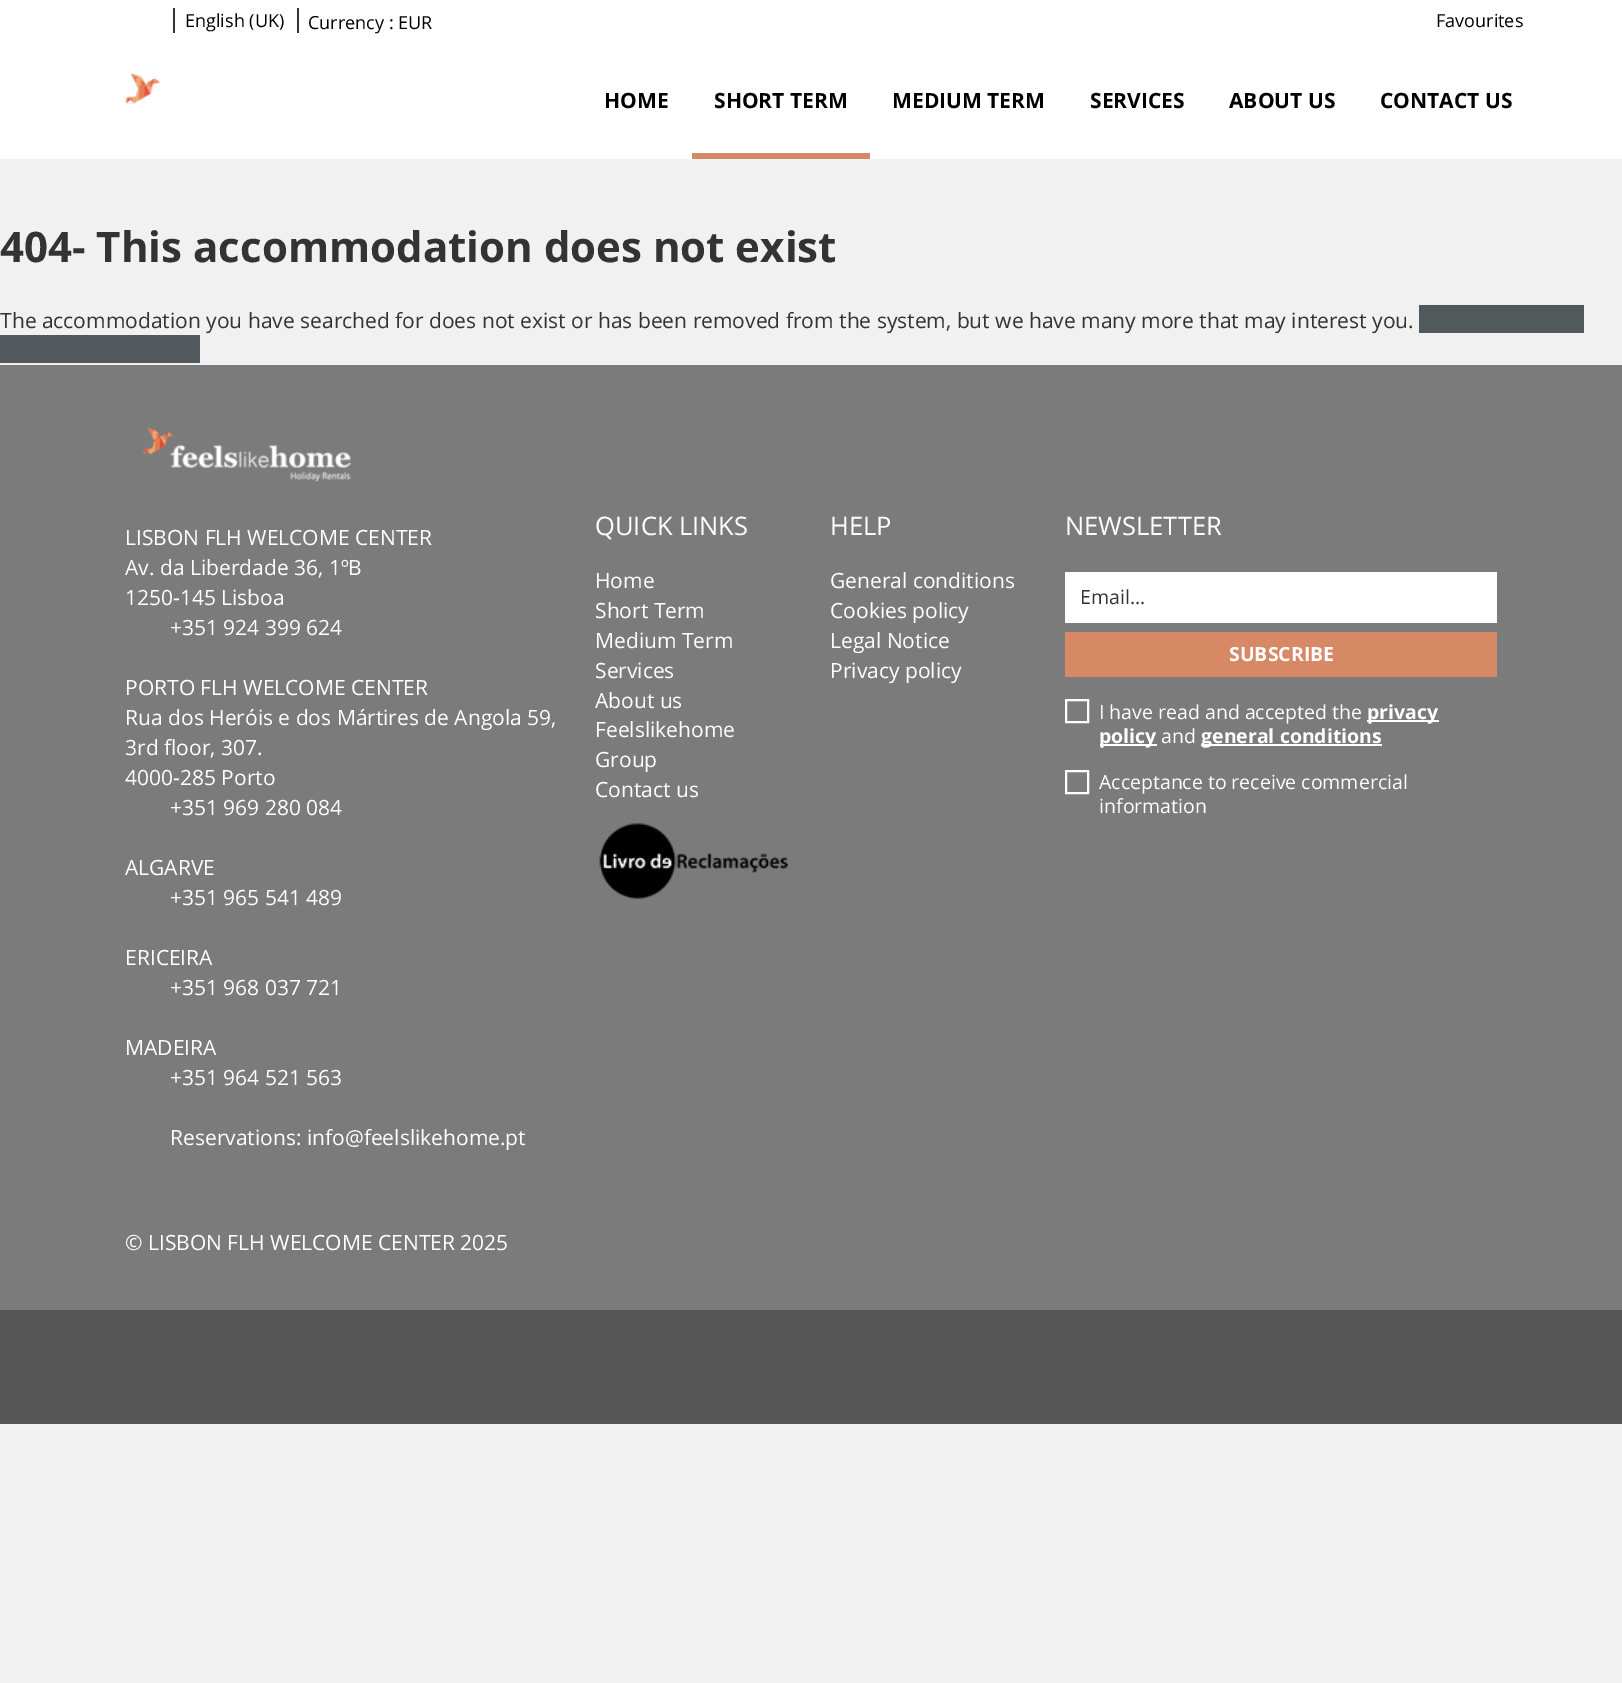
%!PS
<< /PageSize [1622 1683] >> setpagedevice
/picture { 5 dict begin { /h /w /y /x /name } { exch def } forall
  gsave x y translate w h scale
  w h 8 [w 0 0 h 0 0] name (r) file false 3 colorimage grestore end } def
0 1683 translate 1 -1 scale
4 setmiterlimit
0.945 setgray
0 0 1622 1683 rectfill
1 setgray
0 0 1622 159 rectfill
0.2 setgray
173 8 2 25 rectfill
/OpenSans-Regular [18 0 0 -18 0 0] selectfont
0 setgray
185 27 moveto (English \(UK\)) show
0.2 setgray
297 8 2 25 rectfill
0 setgray
308 29 moveto (Currency : EUR) show
1436 27 moveto (Favourites) show
(img1.rgb) 125 73 35 31 picture
/OpenSans-Bold [21 0 0 -21 0 0] selectfont
604 108 moveto (HOME) show
0.839 0.537 0.392 setrgbcolor
692 153 178 6 rectfill
0 setgray
714 108 moveto (SHORT TERM) show
892 108 moveto (MEDIUM TERM) show
1090 108 moveto (SERVICES) show
1229 108 moveto (ABOUT US) show
1380 108 moveto (CONTACT US) show
/OpenSans-Bold [42 0 0 -42 0 0] selectfont
0.2 setgray
0 262 moveto (404- This accommodation does not exist) show
/OpenSans-Regular [21 0 0 -21 0 0] selectfont
0 328 moveto (The accommodation you have searched for does not exist or has been removed from the system, but we have many more that may interest you.) show
0.318 0.349 0.365 setrgbcolor
1419 305 165 28 rectfill
0 335 200 28 rectfill
0.482 setgray
0 365 1622 945 rectfill
(img2.rgb) 142 427 209 55 picture
1 setgray
125 545 moveto (LISBON FLH WELCOME CENTER) show
125 575 moveto (Av. da Liberdade 36, 1ºB) show
125 605 moveto (1250-145 Lisboa) show
170 635 moveto (+351 924 399 624) show
125 695 moveto (PORTO FLH WELCOME CENTER) show
125 725 moveto (Rua dos Heróis e dos Mártires de Angola 59,) show
125 755 moveto (3rd floor, 307.) show
125 785 moveto (4000-285 Porto) show
170 815 moveto (+351 969 280 084) show
125 875 moveto (ALGARVE) show
170 905 moveto (+351 965 541 489) show
125 965 moveto (ERICEIRA) show
170 995 moveto (+351 968 037 721) show
125 1055 moveto (MADEIRA) show
170 1085 moveto (+351 964 521 563) show
170 1145 moveto (Reservations: info@feelslikehome.pt) show
125 1250 moveto (© LISBON FLH WELCOME CENTER 2025) show
/OpenSans-Regular [25.5 0 0 -25.5 0 0] selectfont
595 535 moveto (QUICK LINKS) show
/OpenSans-Regular [21 0 0 -21 0 0] selectfont
595 588 moveto (Home) show
595 618 moveto (Short Term) show
595 648 moveto (Medium Term) show
595 678 moveto (Services) show
595 708 moveto (About us) show
595 737 moveto (Feelslikehome) show
595 767 moveto (Group) show
595 797 moveto (Contact us) show
(img3.rgb) 599 823 189 76 picture
/OpenSans-Regular [25.5 0 0 -25.5 0 0] selectfont
830 535 moveto (HELP) show
/OpenSans-Regular [21 0 0 -21 0 0] selectfont
830 588 moveto (General conditions) show
830 618 moveto (Cookies policy) show
830 648 moveto (Legal Notice) show
830 678 moveto (Privacy policy) show
/OpenSans-Regular [25.5 0 0 -25.5 0 0] selectfont
1065 535 moveto (NEWSLETTER) show
1065 572 432 51 rectfill
/OpenSans-Regular [19.5 0 0 -19.5 0 0] selectfont
0.2 setgray
1080 604 moveto (Email...) show
0.839 0.537 0.392 setrgbcolor
1065 632 432 45 rectfill
/OpenSans-Bold [19.5 0 0 -19.5 0 0] selectfont
1 setgray
1229 661 moveto (SUBSCRIBE) show
2 setlinewidth
1066 700 22 22 rectstroke
/OpenSans-Regular [19.5 0 0 -19.5 0 0] selectfont
1099 719 moveto (I have read and accepted the) show
1367 720 72 2 rectfill
/OpenSans-Bold [19.5 0 0 -19.5 0 0] selectfont
1367 719 moveto (privacy) show
1100 744 57 2 rectfill
1099 743 moveto (policy) show
/OpenSans-Regular [19.5 0 0 -19.5 0 0] selectfont
1161 743 moveto (and) show
1202 744 180 2 rectfill
/OpenSans-Bold [19.5 0 0 -19.5 0 0] selectfont
1201 743 moveto (general conditions) show
1066 771 22 22 rectstroke
/OpenSans-Regular [19.5 0 0 -19.5 0 0] selectfont
1099 789 moveto (Acceptance to receive commercial) show
1099 813 moveto (information) show
0.337 setgray
0 1310 1622 114 rectfill
showpage
